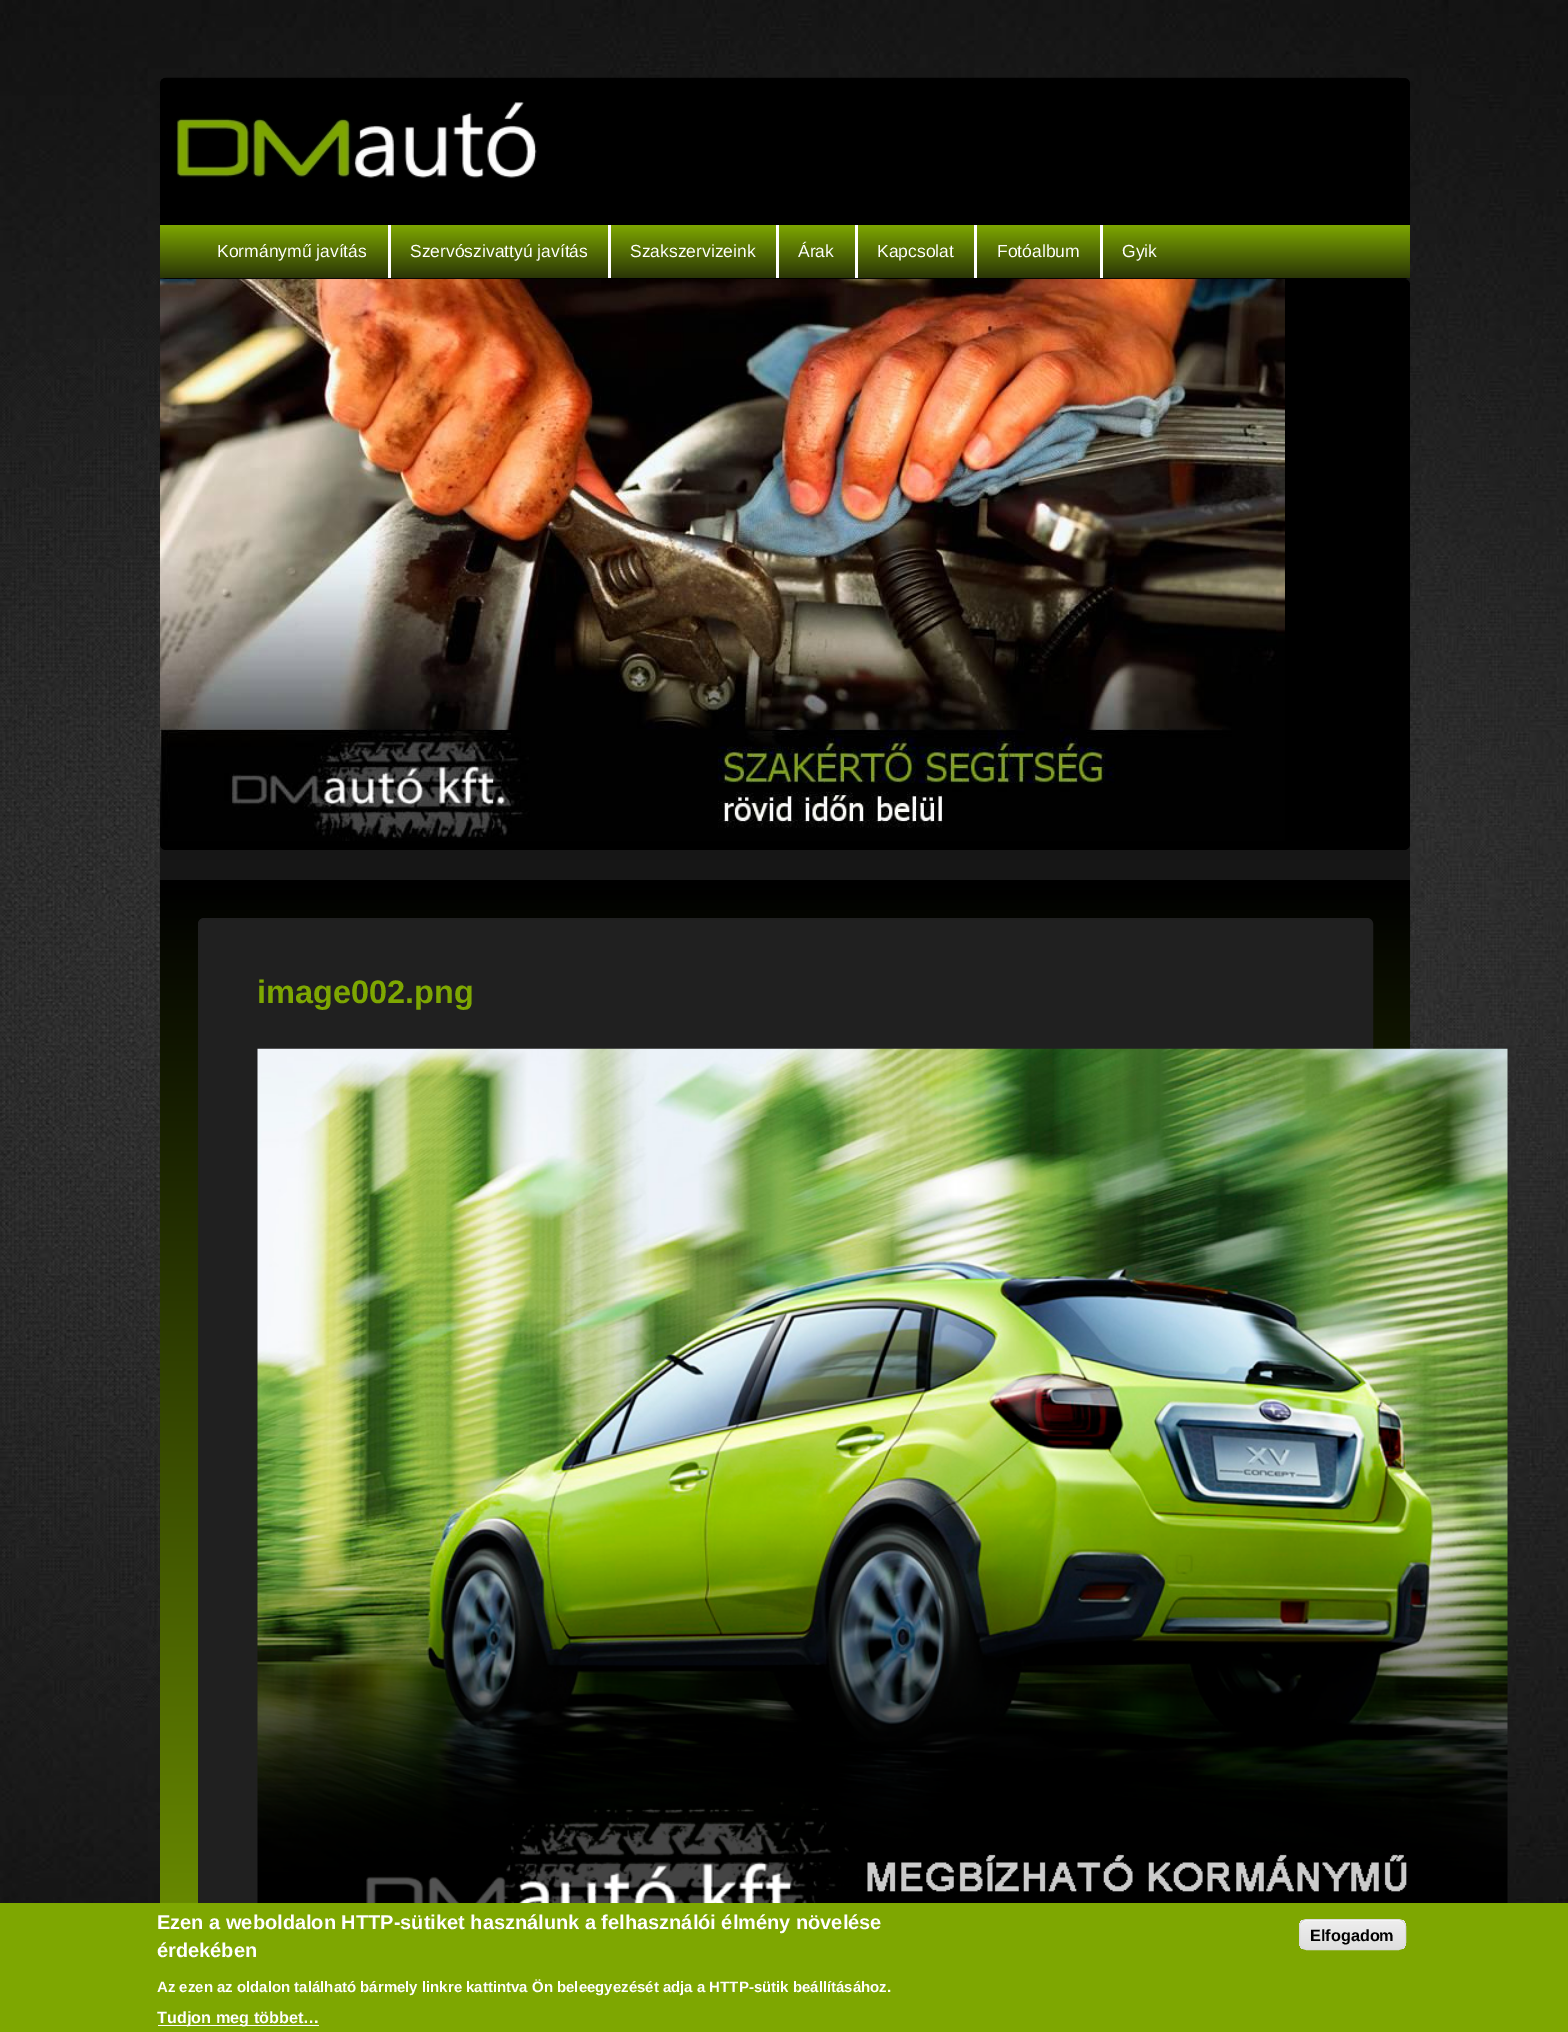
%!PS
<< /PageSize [1568 2032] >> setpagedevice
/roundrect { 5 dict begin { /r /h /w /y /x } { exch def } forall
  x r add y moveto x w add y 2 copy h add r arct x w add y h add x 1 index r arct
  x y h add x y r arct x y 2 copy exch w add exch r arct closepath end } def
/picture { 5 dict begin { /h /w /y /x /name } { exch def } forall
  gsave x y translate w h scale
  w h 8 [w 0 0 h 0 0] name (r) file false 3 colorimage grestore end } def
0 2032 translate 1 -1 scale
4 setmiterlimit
1 setgray
0 0 1568 2032 rectfill
(img1.rgb) 0 0 1568 1903 picture
0.086 setgray
160 78 1250 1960 6 roundrect fill
0 setgray
160 78 1250 201 6 roundrect fill
(img2.rgb) 160 77 1239 101 picture
gsave newpath 160 225 moveto 1410 225 lineto 1410 278 lineto 160 278 lineto closepath clip newpath
<< /ShadingType 2 /ColorSpace /DeviceRGB /Coords [785 225 785 278] /Extend [true true] /Function << /FunctionType 2 /Domain [0 1] /C0 [0.494 0.655 0.004] /C1 [0.165 0.208 0.027] /N 1 >> >> shfill grestore
1 setgray
388 225 3 53 rectfill
/LiberationSans-Regular [17.5 0 0 -17.5 0 0] selectfont
217 257 moveto (Kormánymű javítás) show
608 225 3 53 rectfill
410 257 moveto (Szervószivattyú javítás) show
776 225 3 53 rectfill
630 257 moveto (Szakszervizeink) show
855 225 3 53 rectfill
798 257 moveto (Árak) show
974 225 3 53 rectfill
877 257 moveto (Kapcsolat) show
1100 225 3 53 rectfill
997 257 moveto (Fotóalbum) show
1122 257 moveto (Gyik) show
0 setgray
160 279 1250 571 6 roundrect fill
(img3.rgb) 160 278 1125 563 picture
gsave newpath 160 880 moveto 1410 880 lineto 1410 1903 lineto 160 1903 lineto closepath clip newpath
<< /ShadingType 2 /ColorSpace /DeviceRGB /Coords [785 880 785 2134] /Extend [true true] /Function << /FunctionType 2 /Domain [0 1] /C0 [0 0 0] /C1 [0.494 0.655 0.004] /N 1 >> >> shfill grestore
0.125 setgray
198.5 918.5 1174 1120 5.5 roundrect gsave fill grestore
stroke
/LiberationSans-Bold [32.5 0 0 -32.5 0 0] selectfont
0.494 0.655 0.004 setrgbcolor
257 1003 moveto (image002.png) show
(img4.rgb) 257 1048 1251 855 picture
0 1903 1568 129 rectfill
/LiberationSans-Bold [20 0 0 -20 0 0] selectfont
1 setgray
157 1929 moveto (Ezen a weboldalon HTTP-sütiket használunk a felhasználói élmény növelése) show
157 1957 moveto (érdekében) show
/LiberationSans-Bold [15 0 0 -15 0 0] selectfont
157 1992 moveto (Az ezen az oldalon található bármely linkre kattintva Ön beleegyezését adja a HTTP-sütik beállításához.) show
158 2025 161 1 rectfill
/LiberationSans-Bold [16.25 0 0 -16.25 0 0] selectfont
157 2023 moveto (Tudjon meg többet…) show
gsave
1299 1919 107 31 8 roundrect clip newpath
gsave newpath 1299 1920 moveto 1406 1920 lineto 1406 1949 lineto 1299 1949 lineto closepath clip newpath
<< /ShadingType 2 /ColorSpace /DeviceRGB /Coords [1353 1920 1353 1949] /Extend [true true] /Function << /FunctionType 3 /Domain [0 1] /Functions [<< /FunctionType 2 /Domain [0 1] /C0 [0.929 0.929 0.929] /C1 [0.929 0.929 0.929] /N 1 >> << /FunctionType 2 /Domain [0 1] /C0 [0.929 0.929 0.929] /C1 [0.875 0.875 0.875] /N 1 >>] /Bounds [0.05] /Encode [0 1 0 1] >> >> shfill grestore
grestore
newpath 1306 1921 moveto 1399 1921 lineto 1402 1921 1405 1924 1405 1928 curveto 1405 1916 1393 1920 1384 1920 curveto 1322 1920 lineto 1312 1920 1300 1916 1300 1928 curveto 1300 1924 1303 1921 1306 1921 curveto closepath fill
0.863 setgray
1299.5 1919.5 106 30 7.5 roundrect stroke
0 setgray
1310 1941 moveto (Elfogadom) show
showpage
